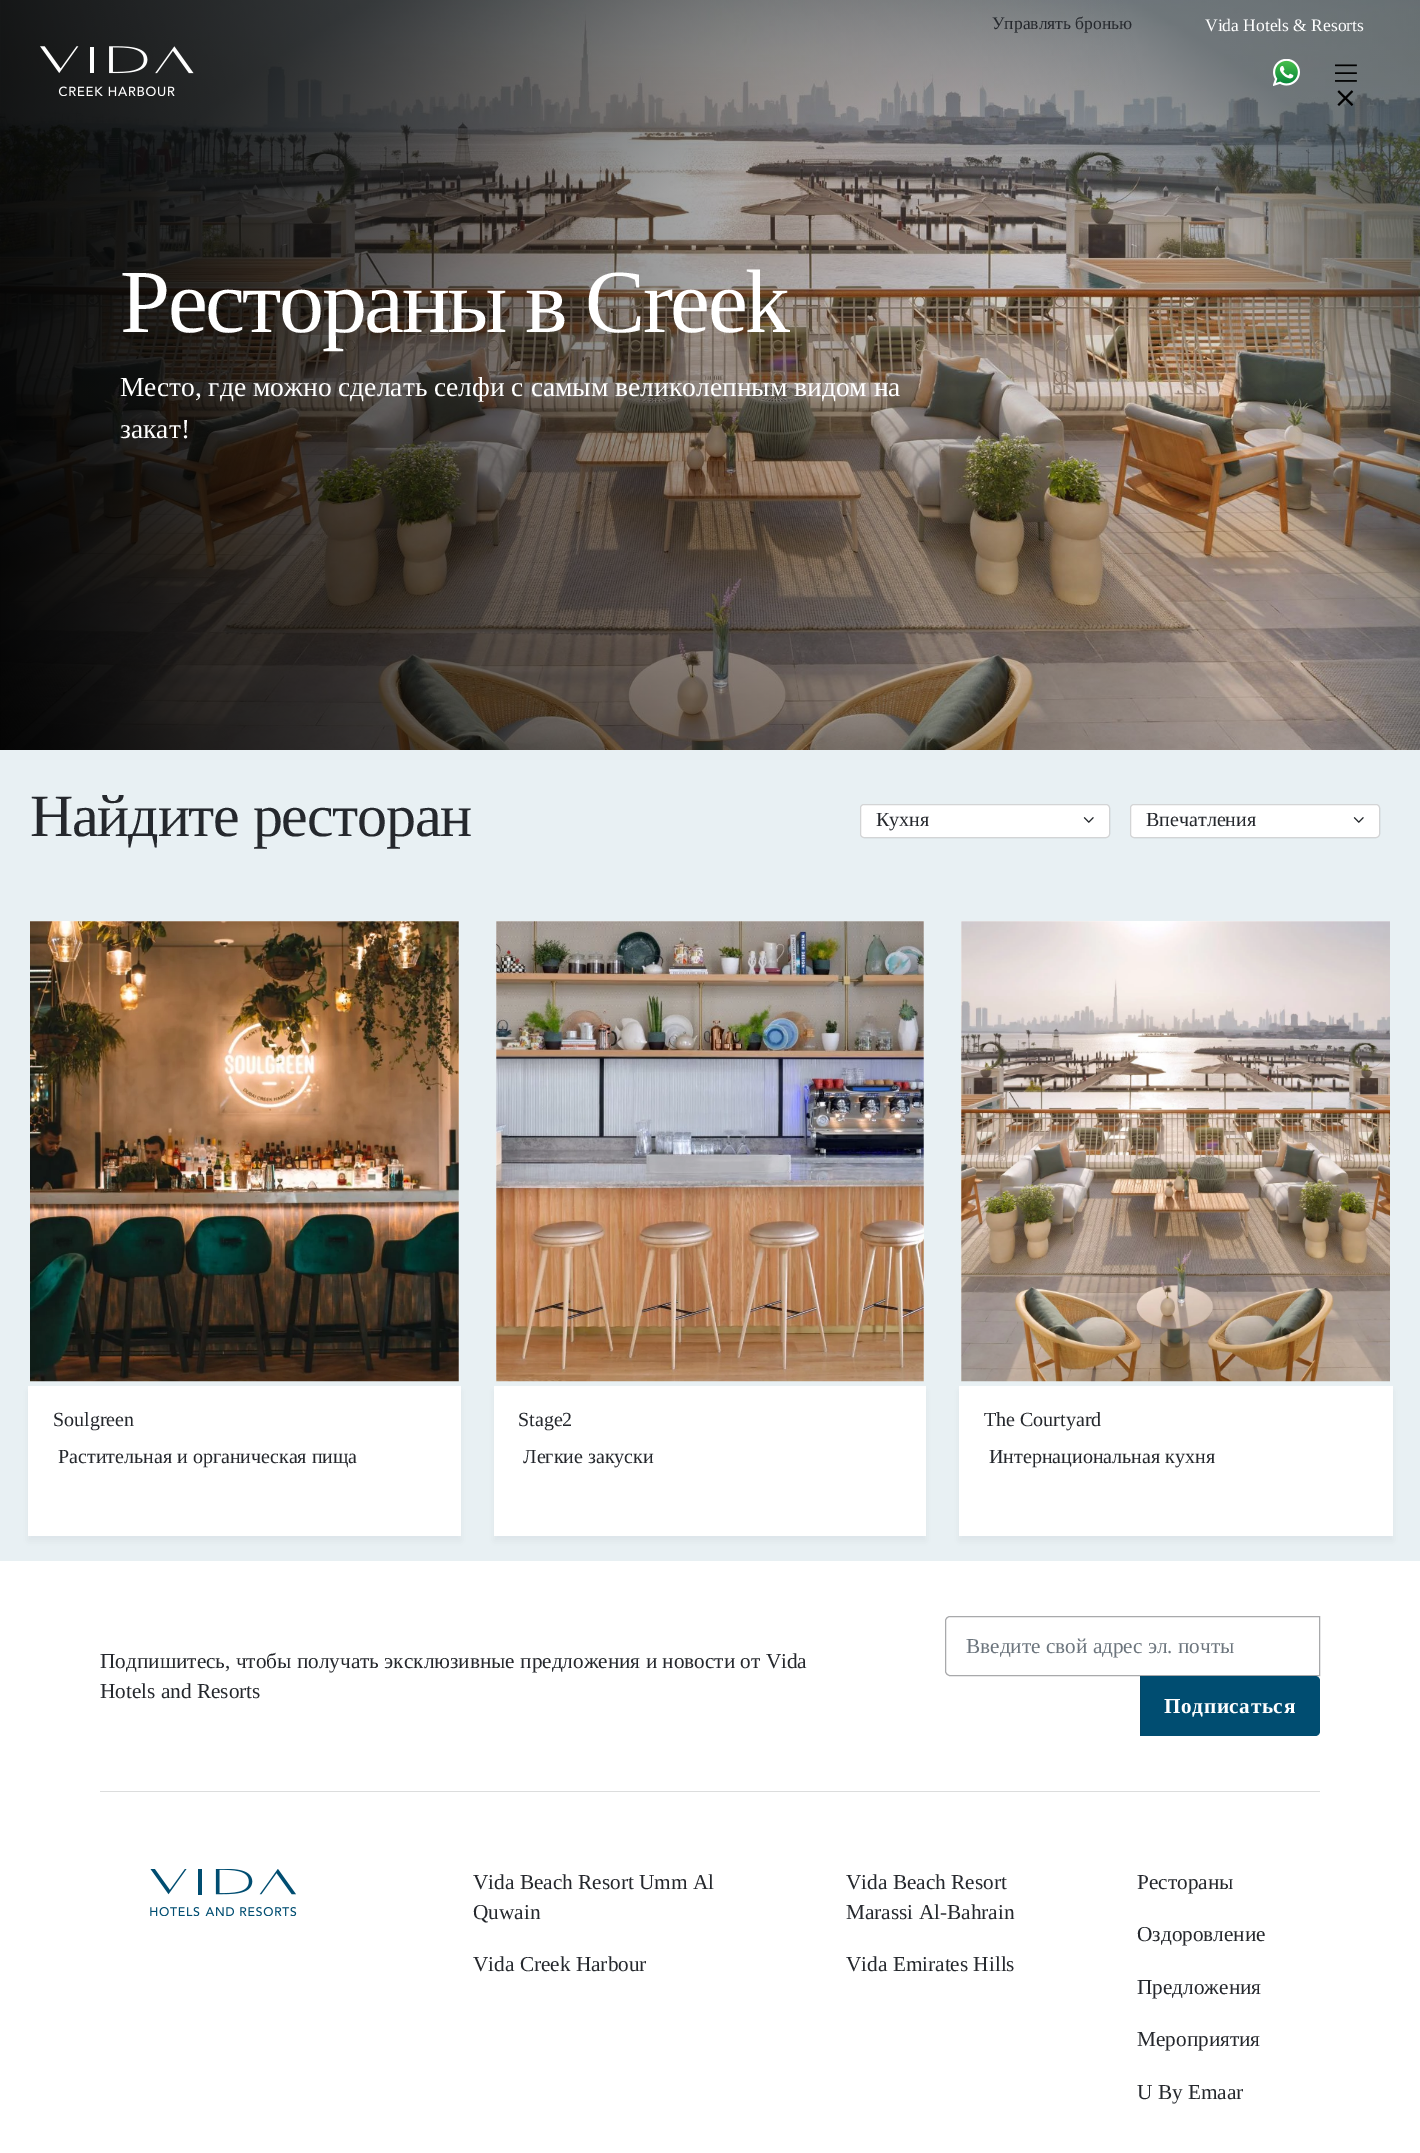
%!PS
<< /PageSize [1420 2153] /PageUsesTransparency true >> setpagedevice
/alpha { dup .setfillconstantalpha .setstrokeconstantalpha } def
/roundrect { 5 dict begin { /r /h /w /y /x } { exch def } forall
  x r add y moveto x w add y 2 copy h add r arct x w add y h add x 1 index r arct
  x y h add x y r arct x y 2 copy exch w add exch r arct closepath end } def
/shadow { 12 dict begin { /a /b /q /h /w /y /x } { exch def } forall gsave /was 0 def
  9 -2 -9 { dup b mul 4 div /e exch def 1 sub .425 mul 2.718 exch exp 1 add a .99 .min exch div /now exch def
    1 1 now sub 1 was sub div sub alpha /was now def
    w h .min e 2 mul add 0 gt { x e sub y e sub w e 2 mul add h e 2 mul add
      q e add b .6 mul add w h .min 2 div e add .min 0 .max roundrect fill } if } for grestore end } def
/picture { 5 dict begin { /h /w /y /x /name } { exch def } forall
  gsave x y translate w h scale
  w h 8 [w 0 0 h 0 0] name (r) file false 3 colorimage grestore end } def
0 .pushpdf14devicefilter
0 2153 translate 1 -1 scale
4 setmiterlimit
1 setgray
0 0 1420 2153 rectfill
(img5.rgb) 0 0 1420 750 picture
/LiberationSerif-Regular [17.5 0 0 -17.5 0 0] selectfont
0.145 0.157 0.176 setrgbcolor
992 29 moveto (Управлять бронью) show
1 setgray
1205 31 moveto (Vida Hotels & Resorts) show
(img1.rgb) 40 46 154 50 picture
(img2.rgb) 1273 59 27 27 picture
(img3.rgb) 1335 64 22 18 picture
(img4.rgb) 1337 90 17 16 picture
0.91 0.941 0.953 setrgbcolor
0 750 1420 811 rectfill
/LiberationSerif-Regular [90 0 0 -90 0 0] selectfont
1 setgray
120 332 moveto -2.5 0 (Рестораны в Creek) ashow
/LiberationSerif-Regular [27.5 0 0 -27.5 0 0] selectfont
120 396 moveto (Место, где можно сделать селфи с самым великолепным видом на) show
120 438 moveto (закат!) show
/LiberationSerif-Regular [60 0 0 -60 0 0] selectfont
0.145 0.157 0.176 setrgbcolor
30 836 moveto -1.25 0 (Найдите ресторан) ashow
1 setgray
860 804 250 34 4 roundrect fill
0.2 alpha
0.145 0.157 0.176 setrgbcolor
860.5 804.5 249 33 3.5 roundrect stroke
/LiberationSerif-Regular [20 0 0 -20 0 0] selectfont
1 alpha
876 826 moveto (Кухня) show
(img6.rgb) 1083 817 11 6 picture
1 setgray
1130 804 250 34 4 roundrect fill
0.2 alpha
0.145 0.157 0.176 setrgbcolor
1130.5 804.5 249 33 3.5 roundrect stroke
1 alpha
1146 826 moveto (Впечатления) show
(img6.rgb) 1353 817 11 6 picture
1 setgray
30 921 429 460 rectfill
(img7.rgb) 30 921 429 461 picture
0.514 0.525 0.639 setrgbcolor
28 1391 433 150 0 4 0.12 shadow
1 setgray
28 1386 433 150 rectfill
0.145 0.157 0.176 setrgbcolor
53 1426 moveto (Soulgreen) show
58 1463 moveto (Растительная и органическая пища) show
1 setgray
496 921 428 460 rectfill
(img8.rgb) 496 921 428 461 picture
0.514 0.525 0.639 setrgbcolor
494 1391 432 150 0 4 0.12 shadow
1 setgray
494 1386 432 150 rectfill
0.145 0.157 0.176 setrgbcolor
518 1426 moveto (Stage2) show
523 1463 moveto (Легкие закуски) show
1 setgray
961 921 429 460 rectfill
(img9.rgb) 961 921 429 461 picture
0.514 0.525 0.639 setrgbcolor
959 1391 434 150 0 4 0.12 shadow
1 setgray
959 1386 434 150 rectfill
0.145 0.157 0.176 setrgbcolor
984 1426 moveto (The Courtyard) show
989 1463 moveto (Интернациональная кухня) show
0.863 0.867 0.867 setrgbcolor
100 1791 1220 1 rectfill
/LiberationSerif-Regular [21.25 0 0 -21.25 0 0] selectfont
0.145 0.157 0.176 setrgbcolor
100 1668 moveto (Подпишитесь, чтобы получать эксклюзивные предложения и новости от Vida) show
100 1698 moveto (Hotels and Resorts) show
0.659 0.663 0.671 setrgbcolor
newpath 950 1616.5 moveto 1319.5 1616.5 lineto 1319.5 1675.5 lineto 950 1675.5 lineto 947.5 1675.5 945.5 1673.5 945.5 1671 curveto 945.5 1621 lineto 945.5 1618.5 947.5 1616.5 950 1616.5 curveto closepath stroke
0.424 0.459 0.49 setrgbcolor
966 1653 moveto (Введите свой адрес эл. почты) show
0 0.302 0.443 setrgbcolor
newpath 1140 1676 moveto 1315 1676 lineto 1318 1676 1320 1678 1320 1681 curveto 1320 1731 lineto 1320 1734 1318 1736 1315 1736 curveto 1140 1736 lineto closepath fill
0.024 0.278 0.4 setrgbcolor
newpath 1141 1678 moveto 1142 1678 lineto 1140 1676 lineto 1140 1736 lineto 1141 1735 lineto closepath fill
/LiberationSerif-Bold [21.25 0 0 -21.25 0 0] selectfont
1 setgray
1164 1713 moveto 0.6 0 (Подписаться) ashow
(img10.rgb) 150 1869 147 47 picture
/LiberationSerif-Regular [21.25 0 0 -21.25 0 0] selectfont
0.145 0.157 0.176 setrgbcolor
473 1889 moveto (Vida Beach Resort Umm Al) show
473 1919 moveto (Quwain) show
473 1971 moveto (Vida Creek Harbour) show
846 1889 moveto (Vida Beach Resort) show
846 1919 moveto (Marassi Al-Bahrain) show
846 1971 moveto (Vida Emirates Hills) show
1137 1889 moveto (Рестораны) show
1137 1941 moveto (Оздоровление) show
1137 1994 moveto (Предложения) show
1137 2046 moveto (Мероприятия) show
1137 2099 moveto (U By Emaar) show
.poppdf14devicefilter showpage
